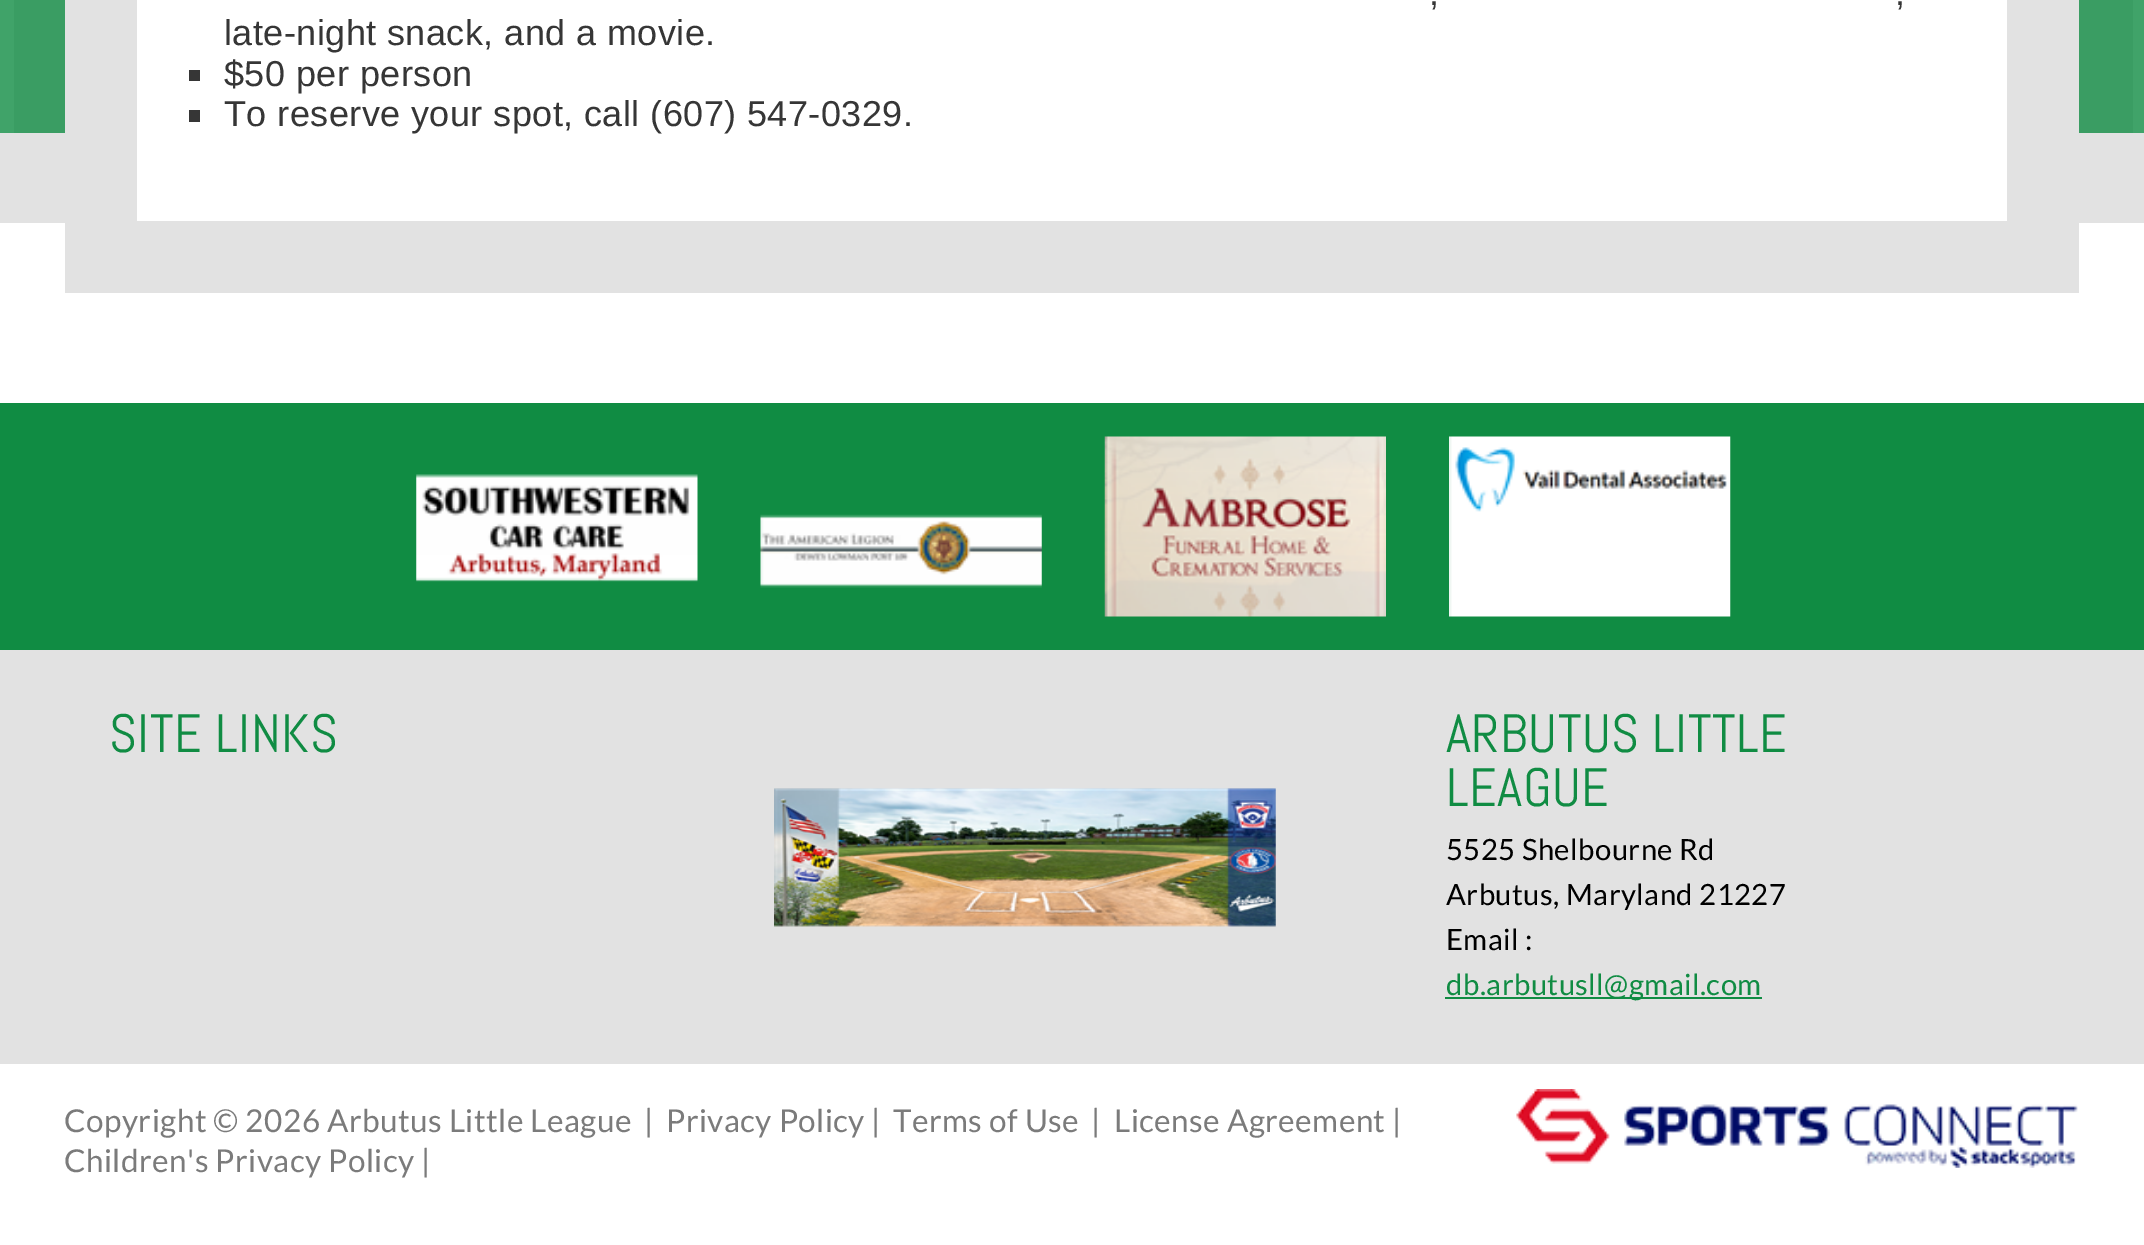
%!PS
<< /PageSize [2144 1245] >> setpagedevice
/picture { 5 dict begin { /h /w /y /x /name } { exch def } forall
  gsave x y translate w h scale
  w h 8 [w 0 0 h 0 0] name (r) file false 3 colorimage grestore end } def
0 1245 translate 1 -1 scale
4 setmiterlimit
1 setgray
0 0 2144 1245 rectfill
0.886 setgray
0 133 2144 90 rectfill
0.251 0.639 0.412 setrgbcolor
0 0 14 133 rectfill
0.227 0.616 0.388 setrgbcolor
14 0 2119 133 rectfill
0.251 0.639 0.412 setrgbcolor
2133 0 11 133 rectfill
0.886 setgray
65 0 2014 293 rectfill
1 setgray
137 0 1870 221 rectfill
/LiberationSans-Regular [36 0 0 -36 0 0] selectfont
0.212 setgray
1429 5 moveto 0.45 0 (,) ashow
1895 5 moveto 0.45 0 (,) ashow
224 45 moveto 0.45 0 (late-night snack, and a movie.) ashow
189 70 11 11 rectfill
224 86 moveto 0.45 0 ($50 per person) ashow
189 110 11 12 rectfill
224 126 moveto 0.45 0 (To reserve your spot, call \(607\) 547-0329.) ashow
0.063 0.549 0.263 setrgbcolor
0 403 2144 247 rectfill
(img1.rgb) 416 474 282 108 picture
(img2.rgb) 760 514 282 74 picture
(img3.rgb) 1104 436 282 181 picture
(img4.rgb) 1449 436 282 181 picture
0.886 setgray
0 650 2144 414 rectfill
/Abel-Regular [54 0 0 -54 0 0] selectfont
0.063 0.549 0.263 setrgbcolor
109 752 moveto 0.45 0 (SITE LINKS) ashow
(img5.rgb) 774 788 502 139 picture
1446 752 moveto 0.45 0 (ARBUTUS LITTLE) ashow
1446 806 moveto 0.45 0 (LEAGUE) ashow
/Lato-Regular [29.25 0 0 -29.25 0 0] selectfont
0 setgray
1446 860 moveto 0.45 0 (5525 Shelbourne Rd) ashow
1446 905 moveto 0.45 0 (Arbutus, Maryland 21227) ashow
1446 950 moveto 0.45 0 (Email :) ashow
0.063 0.549 0.263 setrgbcolor
1445 997 317 2 rectfill
1446 995 moveto 0.45 0 (db.arbutusll@gmail.com) ashow
/Lato-Regular [31.5 0 0 -31.5 0 0] selectfont
0.482 setgray
64 1132 moveto 0.45 0 (Copyright © 2026 Arbutus Little League) ashow
644 1132 moveto (|) show
666 1132 moveto 0.45 0 (Privacy Policy) ashow
871 1132 moveto (|) show
893 1132 moveto 0.45 0 (Terms of Use) ashow
1091 1132 moveto 0.45 0 (|) ashow
1114 1132 moveto 0.45 0 (License Agreement) ashow
1392 1132 moveto (|) show
64 1172 moveto 0.45 0 (Children's Privacy Policy |) ashow
(img6.rgb) 1516 1089 562 79 picture
showpage
